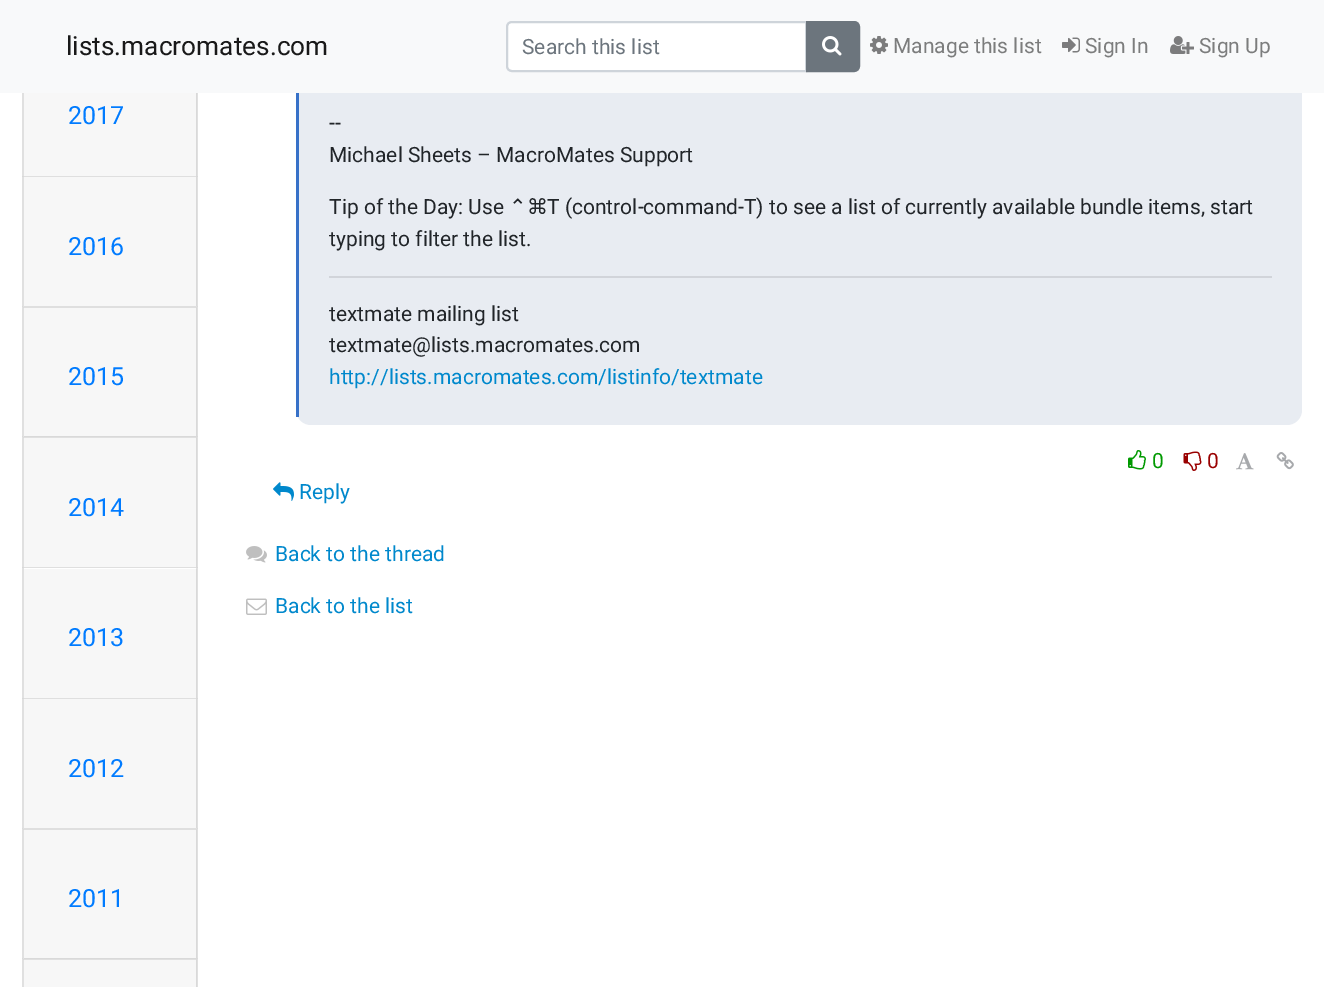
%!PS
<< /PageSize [1324 987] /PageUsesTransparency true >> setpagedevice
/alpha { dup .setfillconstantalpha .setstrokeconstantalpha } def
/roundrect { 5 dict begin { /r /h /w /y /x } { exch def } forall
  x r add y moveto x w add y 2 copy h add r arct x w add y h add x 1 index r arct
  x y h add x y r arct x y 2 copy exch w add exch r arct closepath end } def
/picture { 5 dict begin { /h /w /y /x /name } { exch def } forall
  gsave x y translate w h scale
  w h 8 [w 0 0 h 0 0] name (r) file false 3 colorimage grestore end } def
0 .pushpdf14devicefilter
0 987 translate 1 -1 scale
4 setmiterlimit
1 setgray
0 0 1324 987 rectfill
0.12 alpha
0 setgray
newpath 198 45 moveto 198 176 lineto 196 176 lineto 196 46 lineto closepath fill
newpath 22 176 moveto 22 45 lineto 24 46 lineto 24 176 lineto closepath fill
1 alpha
0.91 0.925 0.949 setrgbcolor
296 -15 1006 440 15 roundrect fill
0.973 0.976 0.98 setrgbcolor
0 0 1324 93 rectfill
/Roboto-Regular [26.25 0 0 -26.25 0 0] selectfont
0.098 setgray
66 55 moveto (lists.macromates.com) show
1 setgray
newpath 512 22 moveto 806 22 lineto 806 71 lineto 512 71 lineto 509 71 507 69 507 66 curveto 507 27 lineto 507 24 509 22 512 22 curveto closepath gsave fill grestore
0.808 0.831 0.855 setrgbcolor
2 setlinewidth
stroke
/Roboto-Regular [21 0 0 -21 0 0] selectfont
0.424 0.459 0.49 setrgbcolor
522 54 moveto (Search this list) show
newpath 807 22 moveto 854 22 lineto 857 22 859 24 859 27 curveto 859 66 lineto 859 69 857 71 854 71 curveto 807 71 lineto closepath gsave fill grestore
stroke
(img1.rgb) 822 36 20 20 picture
(img2.rgb) 870 36 18 18 picture
0.486 0.49 0.49 setrgbcolor
893 53 moveto (Manage this list) show
(img3.rgb) 1062 37 18 16 picture
1085 53 moveto (Sign In) show
(img4.rgb) 1170 36 24 18 picture
1199 53 moveto (Sign Up) show
0.03 alpha
0 setgray
24 93 173 83 rectfill
/Roboto-Regular [25 0 0 -25 0 0] selectfont
1 alpha
0 0.482 1 setrgbcolor
68 124 moveto (2017) show
0.875 setgray
newpath 22 176 moveto 198 176 lineto 196 177 lineto 24 177 lineto closepath fill
0.12 alpha
0 setgray
newpath 198 176 moveto 198 306 lineto 196 306 lineto 196 177 lineto closepath fill
newpath 22 306 moveto 22 176 lineto 24 177 lineto 24 306 lineto closepath fill
0.03 alpha
24 177 173 129 rectfill
1 alpha
0 0.482 1 setrgbcolor
68 255 moveto (2016) show
0.875 setgray
newpath 22 306 moveto 198 306 lineto 196 308 lineto 24 308 lineto closepath fill
0.12 alpha
0 setgray
newpath 198 306 moveto 198 436 lineto 196 436 lineto 196 308 lineto closepath fill
newpath 22 436 moveto 22 306 lineto 24 308 lineto 24 436 lineto closepath fill
0.03 alpha
24 308 173 129 rectfill
1 alpha
0 0.482 1 setrgbcolor
68 385 moveto (2015) show
0.12 alpha
0 setgray
newpath 22 436 moveto 198 436 lineto 196 438 lineto 24 438 lineto closepath fill
newpath 198 436 moveto 198 567 lineto 196 567 lineto 196 438 lineto closepath fill
newpath 22 567 moveto 22 436 lineto 24 438 lineto 24 567 lineto closepath fill
0.03 alpha
24 438 173 129 rectfill
1 alpha
0 0.482 1 setrgbcolor
68 516 moveto (2014) show
0.875 setgray
newpath 22 567 moveto 198 567 lineto 196 568 lineto 24 568 lineto closepath fill
0.12 alpha
0 setgray
newpath 198 567 moveto 198 698 lineto 196 698 lineto 196 568 lineto closepath fill
newpath 22 698 moveto 22 567 lineto 24 568 lineto 24 698 lineto closepath fill
0.03 alpha
24 569 173 129 rectfill
1 alpha
0 0.482 1 setrgbcolor
68 646 moveto (2013) show
0.875 setgray
newpath 22 698 moveto 198 698 lineto 196 699 lineto 24 699 lineto closepath fill
0.12 alpha
0 setgray
newpath 198 698 moveto 198 828 lineto 196 828 lineto 196 699 lineto closepath fill
newpath 22 828 moveto 22 698 lineto 24 699 lineto 24 828 lineto closepath fill
0.03 alpha
24 699 173 129 rectfill
1 alpha
0 0.482 1 setrgbcolor
68 777 moveto (2012) show
0.875 setgray
newpath 22 828 moveto 198 828 lineto 196 830 lineto 24 830 lineto closepath fill
0.12 alpha
0 setgray
newpath 198 828 moveto 198 958 lineto 196 958 lineto 196 830 lineto closepath fill
newpath 22 958 moveto 22 828 lineto 24 830 lineto 24 958 lineto closepath fill
0.03 alpha
24 830 173 129 rectfill
1 alpha
0 0.482 1 setrgbcolor
68 907 moveto (2011) show
0.12 alpha
0 setgray
newpath 22 958 moveto 198 958 lineto 196 960 lineto 24 960 lineto closepath fill
newpath 198 958 moveto 198 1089 lineto 196 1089 lineto 196 960 lineto closepath fill
newpath 22 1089 moveto 22 958 lineto 24 960 lineto 24 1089 lineto closepath fill
0.03 alpha
24 960 173 27 rectfill
1 alpha
0.216 0.443 0.784 setrgbcolor
296 93 3 324 rectfill
/Roboto-Regular [21 0 0 -21 0 0] selectfont
0.129 0.145 0.161 setrgbcolor
329 130 moveto (--) show
329 162 moveto (Michael Sheets – MacroMates Support) show
329 214 moveto (Tip of the Day: Use) show
/DejaVuSans-Regular [21 0 0 -21 0 0] selectfont
509 214 moveto (⌃⌘) show
/Roboto-Regular [21 0 0 -21 0 0] selectfont
547 214 moveto (T \(control-command-T\) to see a list of currently available bundle items, start) show
329 246 moveto (typing to filter the list.) show
0.82 0.831 0.855 setrgbcolor
329 276 943 2 rectfill
0.129 0.145 0.161 setrgbcolor
329 321 moveto (textmate mailing list) show
329 352 moveto (textmate@lists.macromates.com) show
0 0.533 0.8 setrgbcolor
329 384 moveto (http://lists.macromates.com/listinfo/textmate) show
(img5.rgb) 1128 450 18 20 picture
0 0.6 0 setrgbcolor
1152 468 moveto (0) show
(img6.rgb) 1183 451 19 20 picture
0.6 0 0 setrgbcolor
1207 468 moveto (0) show
(img7.rgb) 1236 453 18 17 picture
(img8.rgb) 1276 452 18 18 picture
(img9.rgb) 273 482 21 19 picture
0 0.533 0.8 setrgbcolor
299 499 moveto (Reply) show
(img10.rgb) 246 546 21 17 picture
275 561 moveto (Back to the thread) show
(img11.rgb) 246 598 21 17 picture
275 613 moveto (Back to the list) show
.poppdf14devicefilter showpage
